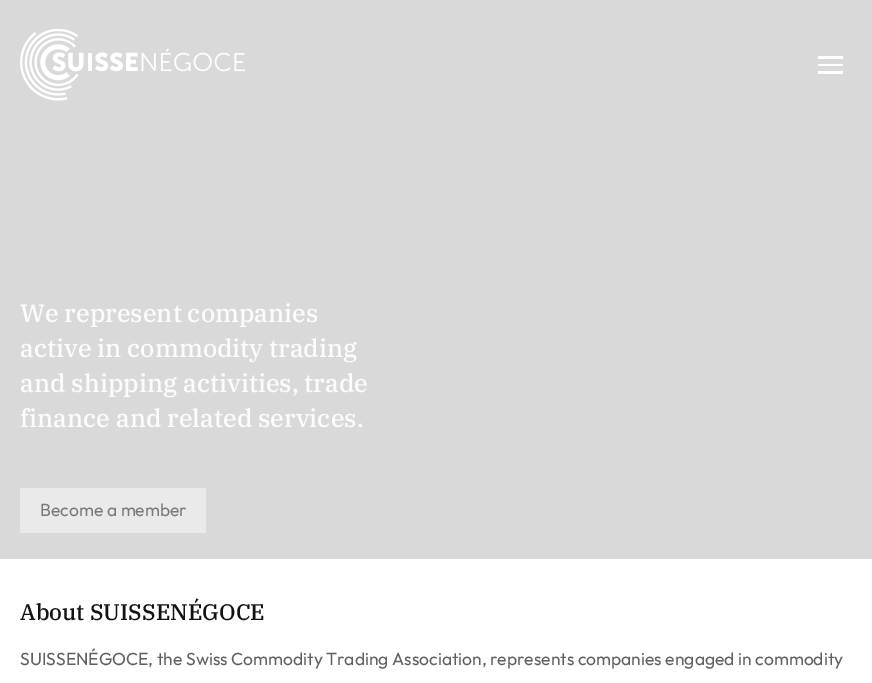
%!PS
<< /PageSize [872 683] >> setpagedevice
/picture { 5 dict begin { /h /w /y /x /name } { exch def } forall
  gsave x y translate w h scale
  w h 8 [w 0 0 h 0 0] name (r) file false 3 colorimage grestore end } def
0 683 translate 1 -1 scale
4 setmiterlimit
1 setgray
0 0 872 683 rectfill
0.851 setgray
0 0 872 559 rectfill
(img1.rgb) 20 29 225 72 picture
1 setgray
818 56 25 3 rectfill
818 64 25 2 rectfill
818 71 25 3 rectfill
/IBMPlexSerif-Medium [25 0 0 -25 0 0] selectfont
0.988 setgray
20 322 moveto (We represent companies) show
20 357 moveto (active in commodity trading) show
20 392 moveto (and shipping activities, trade) show
20 427 moveto (finance and related services.) show
0.918 setgray
20 488 186 45 rectfill
/Outfit-Regular [17.5 0 0 -17.5 0 0] selectfont
0.475 setgray
40 516 moveto (Become a member) show
/IBMPlexSerif-Medium [22.5 0 0 -22.5 0 0] selectfont
0.075 setgray
20 620 moveto (About SUISSENÉGOCE) show
/Outfit-Regular [17.5 0 0 -17.5 0 0] selectfont
0.376 setgray
20 665 moveto (SUISSENÉGOCE, the Swiss Commodity Trading Association, represents companies engaged in commodity) show
showpage
